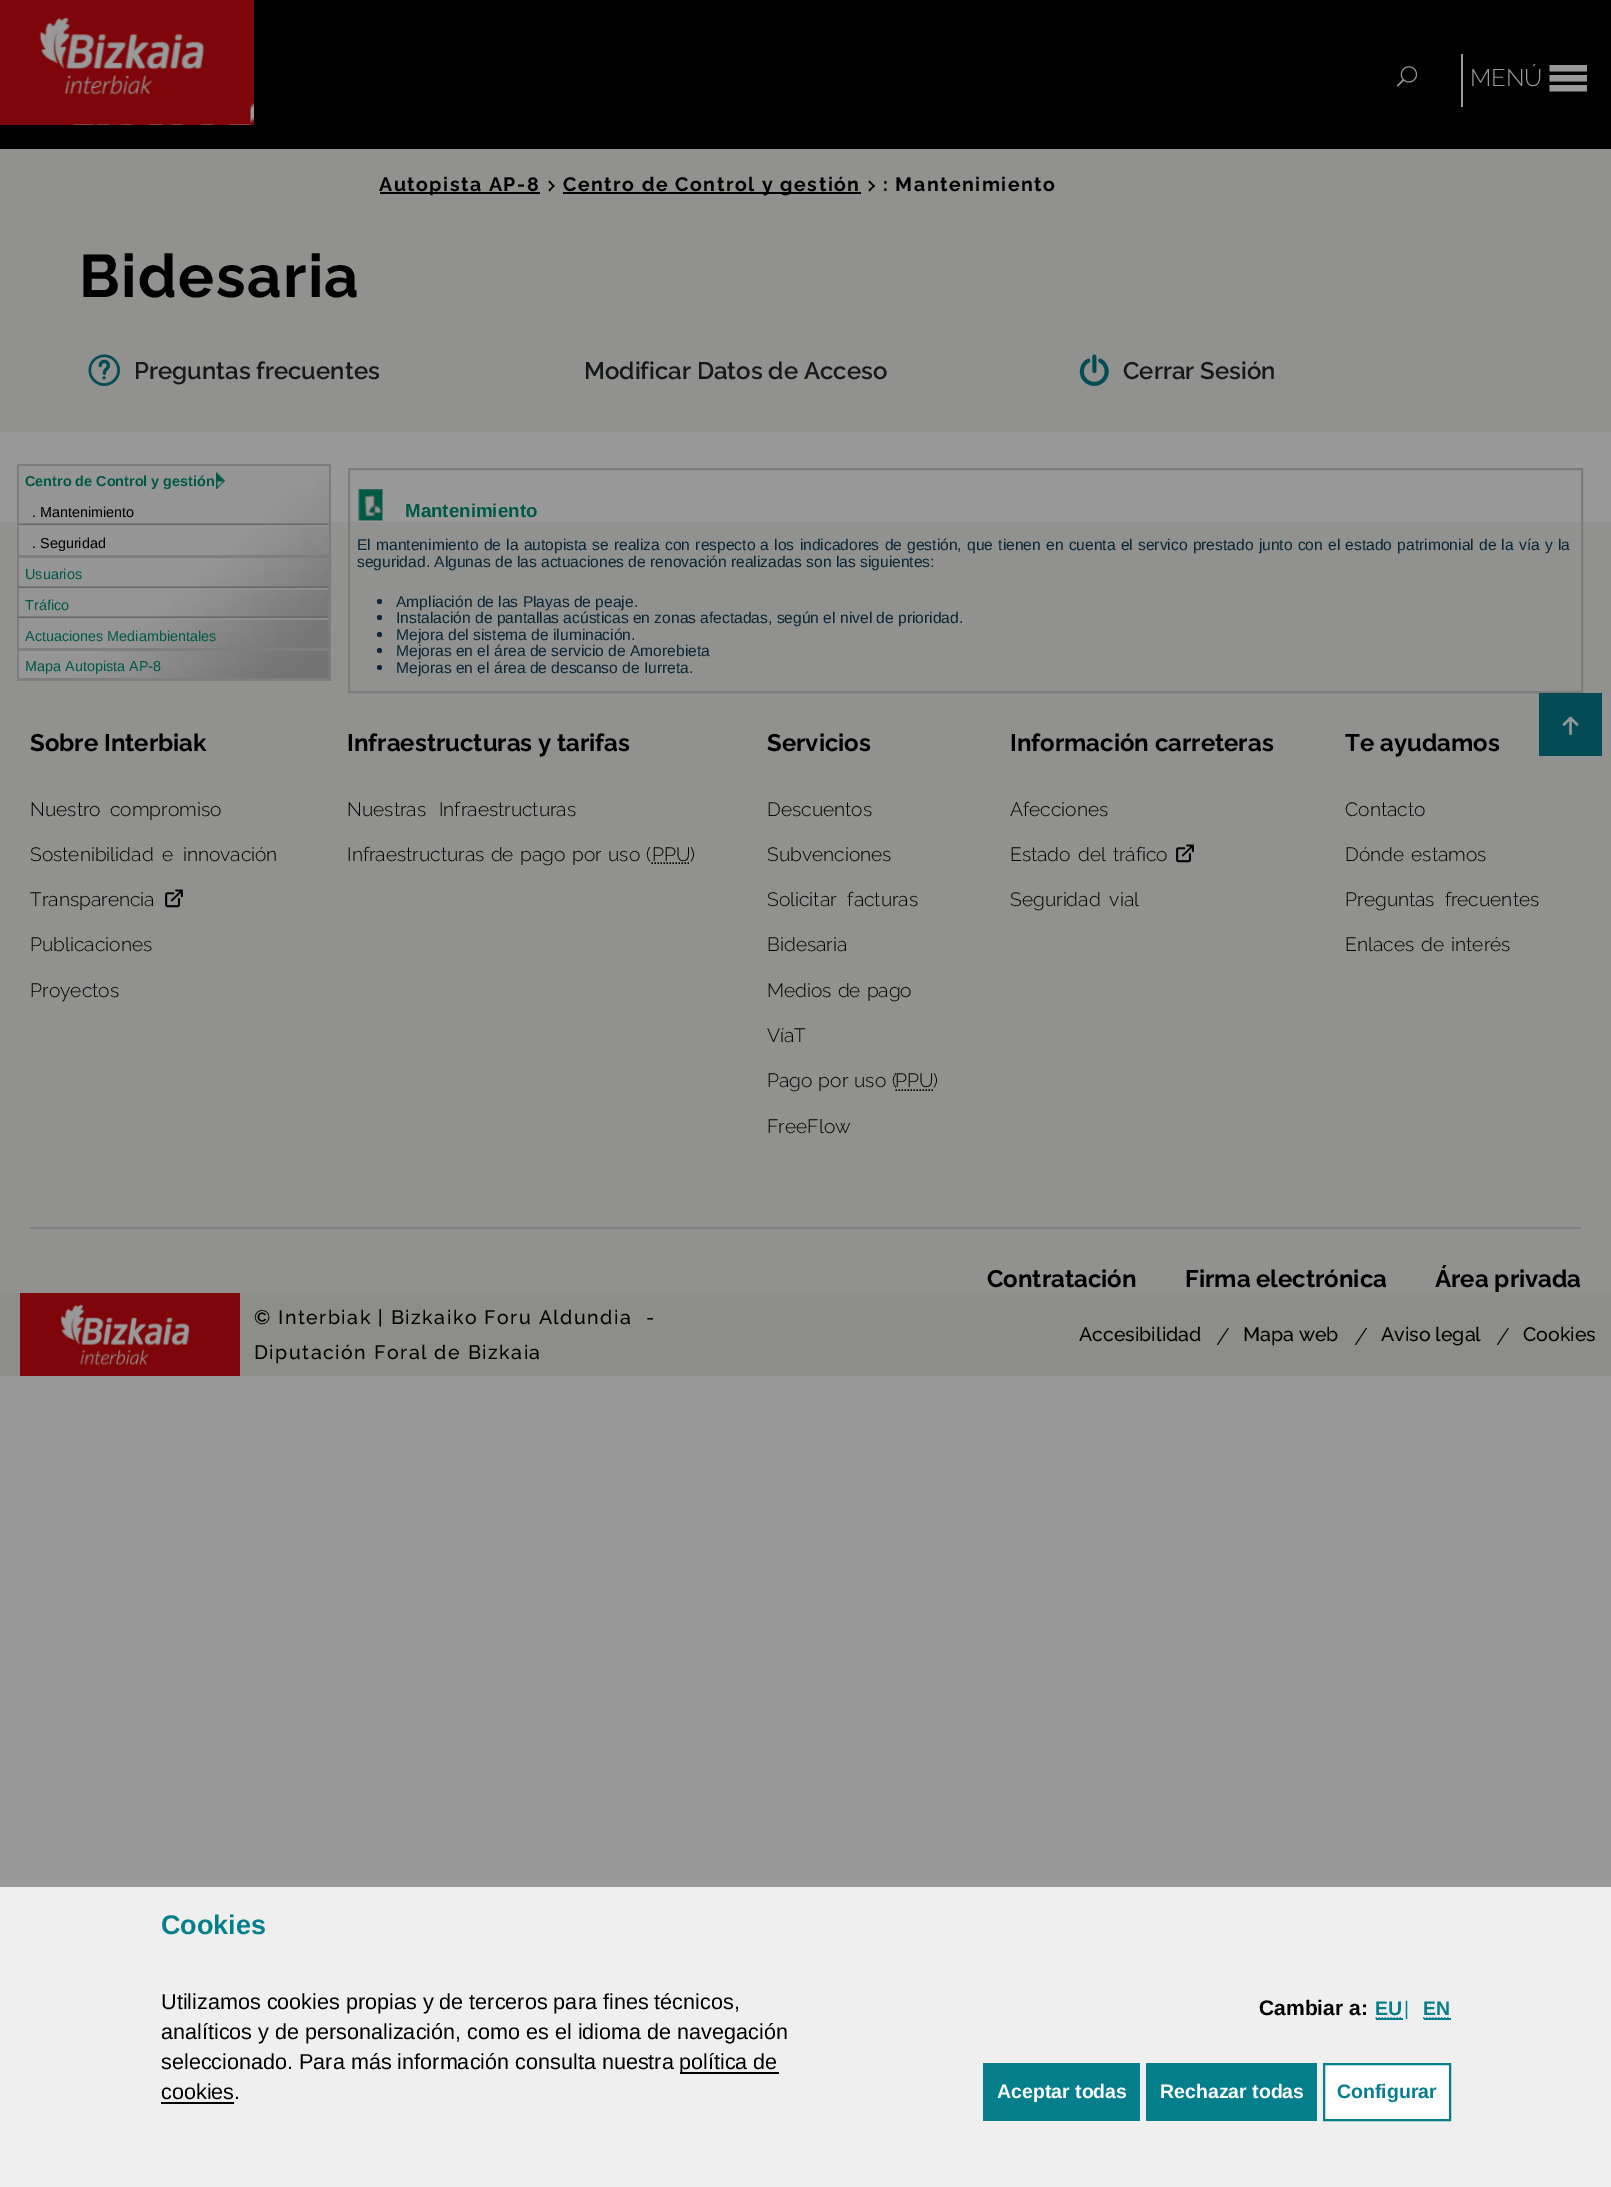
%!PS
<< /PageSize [1611 2187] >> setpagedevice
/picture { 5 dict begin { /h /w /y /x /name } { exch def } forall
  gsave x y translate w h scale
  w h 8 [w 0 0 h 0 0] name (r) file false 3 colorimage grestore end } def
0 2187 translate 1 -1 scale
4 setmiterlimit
0.6 setgray
0 0 1611 2187 rectfill
0.569 0.569 0.561 setrgbcolor
0 149 1611 283 rectfill
0 setgray
0 0 1611 149 rectfill
(img1.rgb) 0 0 254 125 picture
(img2.rgb) 39 17 212 108 picture
(img3.rgb) 1396 66 22 21 picture
0.6 setgray
1461 54 2 53 rectfill
/Raleway-Light [24 0 0 -24 0 0] selectfont
1470 86 moveto (MENÚ) show
newpath 1549.5 75 moveto 1587 75 lineto 1587 81.5 lineto 1549.5 81.5 lineto closepath 1549.5 85 moveto 1587 85 lineto 1587 91.5 lineto 1549.5 91.5 lineto closepath 1549.5 65 moveto 1587 65 lineto 1587 71.5 lineto 1549.5 71.5 lineto closepath fill
/Raleway-Bold [60 0 0 -60 0 0] selectfont
0 setgray
79 297 moveto 1.5 0 (Bidesaria) ashow
(img4.rgb) 88 354 32 32 picture
/Raleway-SemiBold [24 0 0 -24 0 0] selectfont
0.086 0.098 0.098 setrgbcolor
134 379 moveto (Preguntas frecuentes) show
584 379 moveto (Modificar Datos de Acceso) show
(img5.rgb) 1079 354 30 32 picture
1123 379 moveto (Cerrar Sesión) show
0.569 0.569 0.561 setrgbcolor
0 522 1611 771 rectfill
(img6.rgb) 16 463 314 218 picture
0.486 setgray
17 464 313 2 rectfill
329 464 2 217 rectfill
17 464 2 217 rectfill
0.494 setgray
18 555 311 3 rectfill
(img7.rgb) 216 472 9 17 picture
/LiberationSans-Bold [14.4 0 0 -14.4 0 0] selectfont
0 0.349 0.275 setrgbcolor
25 486 moveto (Centro de Control y gestión) show
(img8.rgb) 18 523 311 4 picture
/LiberationSans-Regular [14.4 0 0 -14.4 0 0] selectfont
0 setgray
32 517 moveto (. Mantenimiento) show
32 548 moveto (. Seguridad) show
(img9.rgb) 18 586 311 4 picture
0 0.349 0.275 setrgbcolor
25 579 moveto (Usuarios) show
(img10.rgb) 18 616 311 4 picture
25 610 moveto (Tráfico) show
0.494 setgray
18 648 311 3 rectfill
0 0.349 0.275 setrgbcolor
25 641 moveto (Actuaciones Mediambientales) show
0.494 setgray
18 678 311 3 rectfill
0 0.349 0.275 setrgbcolor
25 671 moveto (Mapa Autopista AP-8) show
0.486 setgray
2 setlinewidth
349 469 1233 223 rectstroke
0 setgray
380 192 160 2 rectfill
/Raleway-Bold [19.5 0 0 -19.5 0 0] selectfont
379 191 moveto 1.5 0 (Autopista AP-8) ashow
newpath 548.5 182 moveto 549.5 180.5 lineto 554.5 186 lineto 553.5 187 lineto closepath fill
newpath 548.5 190 moveto 553.5 185 lineto 554.5 186 lineto 549.5 191.5 lineto closepath fill
563 192 298 2 rectfill
563 191 moveto 1.5 0 (Centro de Control y gestión) ashow
newpath 868.5 182 moveto 869.5 180.5 lineto 875 186 lineto 874 187 lineto closepath fill
newpath 868.5 190 moveto 874 185 lineto 875 186 lineto 869.5 191.5 lineto closepath fill
883 191 moveto 1.5 0 (: Mantenimiento) ashow
(img11.rgb) 358 489 25 32 picture
/LiberationSans-Bold [18.75 0 0 -18.75 0 0] selectfont
0 0.349 0.275 setrgbcolor
405 517 moveto (Mantenimiento) show
/LiberationSans-Regular [15.6 0 0 -15.6 0 0] selectfont
0.043 0.149 0.216 setrgbcolor
357 550 moveto 0.9 0 32 (El mantenimiento de la autopista se realiza con respecto a los indicadores de gestión, que tienen en cuenta el servico prestado junto con el estado patrimonial de la vía y la) widthshow
357 567 moveto (seguridad. Algunas de las actuaciones de renovación realizadas son las siguientes:) show
newpath 379.5 601.5 2.5 0 360 arc closepath fill
396 607 moveto (Ampliación de las Playas de peaje.) show
newpath 379.5 617.5 2.5 0 360 arc closepath fill
396 623 moveto (Instalación de pantallas acústicas en zonas afectadas, según el nivel de prioridad.) show
newpath 379.5 634.5 2.5 0 360 arc closepath fill
396 640 moveto (Mejora del sistema de iluminación.) show
newpath 379.5 650.5 2.5 0 360 arc closepath fill
396 656 moveto (Mejoras en el área de servicio de Amorebieta) show
newpath 379.5 667.5 2.5 0 360 arc closepath fill
396 673 moveto (Mejoras en el área de descanso de Iurreta.) show
0.016 0.298 0.333 setrgbcolor
1539 693 63 63 rectfill
(img12.rgb) 1562 716 17 19 picture
/Raleway-Bold [24 0 0 -24 0 0] selectfont
0 setgray
30 751 moveto (Sobre Interbiak) show
/Raleway-Light [19.25 0 0 -19.25 0 0] selectfont
30 816 moveto 4 0 32 (Nuestro compromiso) widthshow
30 861 moveto 4 0 32 (Sostenibilidad e innovación) widthshow
30 906 moveto (Transparencia) show
(img13.rgb) 165 889 18 19 picture
30 951 moveto (Publicaciones) show
30 997 moveto (Proyectos) show
/Raleway-Bold [24 0 0 -24 0 0] selectfont
347 751 moveto (Infraestructuras y tarifas) show
/Raleway-Light [19.25 0 0 -19.25 0 0] selectfont
347 816 moveto 8 0 32 (Nuestras Infraestructuras) widthshow
347 861 moveto 1.5 0 32 (Infraestructuras de pago por uso \() widthshow
1.5 setlinewidth
[1.5 1.5] 0 setdash
newpath 651.5 863 moveto 690 863 lineto stroke
652 861 moveto (PPU\)) show
/Raleway-Bold [24 0 0 -24 0 0] selectfont
767 751 moveto (Servicios) show
/Raleway-Light [19.25 0 0 -19.25 0 0] selectfont
767 816 moveto (Descuentos) show
767 861 moveto (Subvenciones) show
767 906 moveto 6 0 32 (Solicitar facturas) widthshow
767 951 moveto (Bidesaria) show
767 997 moveto 1 0 32 (Medios de pago) widthshow
767 1042 moveto (VíaT) show
767 1087 moveto 1 0 32 (Pago por uso \() widthshow
newpath 895.5 1090 moveto 934 1090 lineto stroke
895 1087 moveto (PPU\)) show
767 1133 moveto (FreeFlow) show
/Raleway-Bold [24 0 0 -24 0 0] selectfont
1010 751 moveto (Información carreteras) show
/Raleway-Light [19.25 0 0 -19.25 0 0] selectfont
1010 816 moveto (Afecciones) show
1010 861 moveto 2 0 32 (Estado del tráfico) widthshow
(img13.rgb) 1176 844 18 19 picture
1010 906 moveto 4 0 32 (Seguridad vial) widthshow
/Raleway-Bold [24 0 0 -24 0 0] selectfont
1345 751 moveto (Te ayudamos) show
/Raleway-Light [19.25 0 0 -19.25 0 0] selectfont
1345 816 moveto (Contacto) show
1345 861 moveto 2 0 32 (Dónde estamos) widthshow
1345 906 moveto 5 0 32 (Preguntas frecuentes) widthshow
1345 951 moveto 2 0 32 (Enlaces de interés) widthshow
0.498 setgray
30 1227 1551 2 rectfill
/Raleway-Bold [24 0 0 -24 0 0] selectfont
0 setgray
987 1287 moveto (Contratación) show
1185 1287 moveto (Firma electrónica) show
1435 1287 moveto (Área privada) show
0.553 0.553 0.541 setrgbcolor
0 1293 1611 83 rectfill
0.494 0.024 0.039 setrgbcolor
20 1293 220 83 rectfill
(img14.rgb) 60 1304 130 61 picture
/Raleway-Medium [19.5 0 0 -19.5 0 0] selectfont
0 setgray
254 1324 moveto 1.5 0 (© Interbiak | Bizkaiko Foru Aldundia) ashow
646 1324 moveto 1.5 0 (-) ashow
254 1359 moveto 1.5 0 (Diputación Foral de Bizkaia) ashow
1079 1341 moveto (Accesibilidad) show
/Raleway-Light [24 0 0 -24 0 0] selectfont
1216 1345 moveto (/) show
/Raleway-Medium [19.5 0 0 -19.5 0 0] selectfont
1243 1341 moveto (Mapa web) show
/Raleway-Light [24 0 0 -24 0 0] selectfont
1354 1345 moveto (/) show
/Raleway-Medium [19.5 0 0 -19.5 0 0] selectfont
1381 1341 moveto (Aviso legal) show
/Raleway-Light [24 0 0 -24 0 0] selectfont
1496 1345 moveto (/) show
/Raleway-Medium [19.5 0 0 -19.5 0 0] selectfont
1523 1341 moveto (Cookies) show
0.937 setgray
0 1887 1611 300 rectfill
/LiberationSans-Bold [27 0 0 -27 0 0] selectfont
0.024 0.498 0.553 setrgbcolor
161 1934 moveto (Cookies) show
/LiberationSans-Regular [21.6 0 0 -21.6 0 0] selectfont
0 setgray
161 2009 moveto (Utilizamos cookies propias y de terceros para fines técnicos,) show
161 2039 moveto (analíticos y de personalización, como es el idioma de navegación) show
161 2069 moveto (seleccionado. Para más información consulta nuestra) show
680 2072 99 2 rectfill
679 2069 moveto (política de) show
161 2099 moveto (cookies.) show
161 2102 73 2 rectfill
/LiberationSans-Bold [21 0 0 -21 0 0] selectfont
1259 2015 moveto (Cambiar a:) show
/LiberationSans-Bold [19.5 0 0 -19.5 0 0] selectfont
0.024 0.498 0.553 setrgbcolor
1375 2015 moveto (EU) show
newpath 1375.5 2018 moveto 1402.5 2018 lineto stroke
1376 2018 27 2 rectfill
/LiberationSans-Regular [19.5 0 0 -19.5 0 0] selectfont
1404 2015 moveto (|) show
/LiberationSans-Bold [19.5 0 0 -19.5 0 0] selectfont
1423 2015 moveto (EN) show
newpath 1423 2018 moveto 1450 2018 lineto stroke
1424 2018 27 2 rectfill
983 2063 157 58 rectfill
1 setgray
997 2098 moveto (Aceptar todas) show
0.024 0.498 0.553 setrgbcolor
1146 2063 171 58 rectfill
1 setgray
1160 2098 moveto (Rechazar todas) show
newpath 1324 2064 moveto 1450 2064 lineto 1450 2120 lineto 1324 2120 lineto closepath gsave fill grestore
0.024 0.498 0.553 setrgbcolor
2 setlinewidth
[] 0 setdash
stroke
1337 2098 moveto (Configurar) show
showpage
